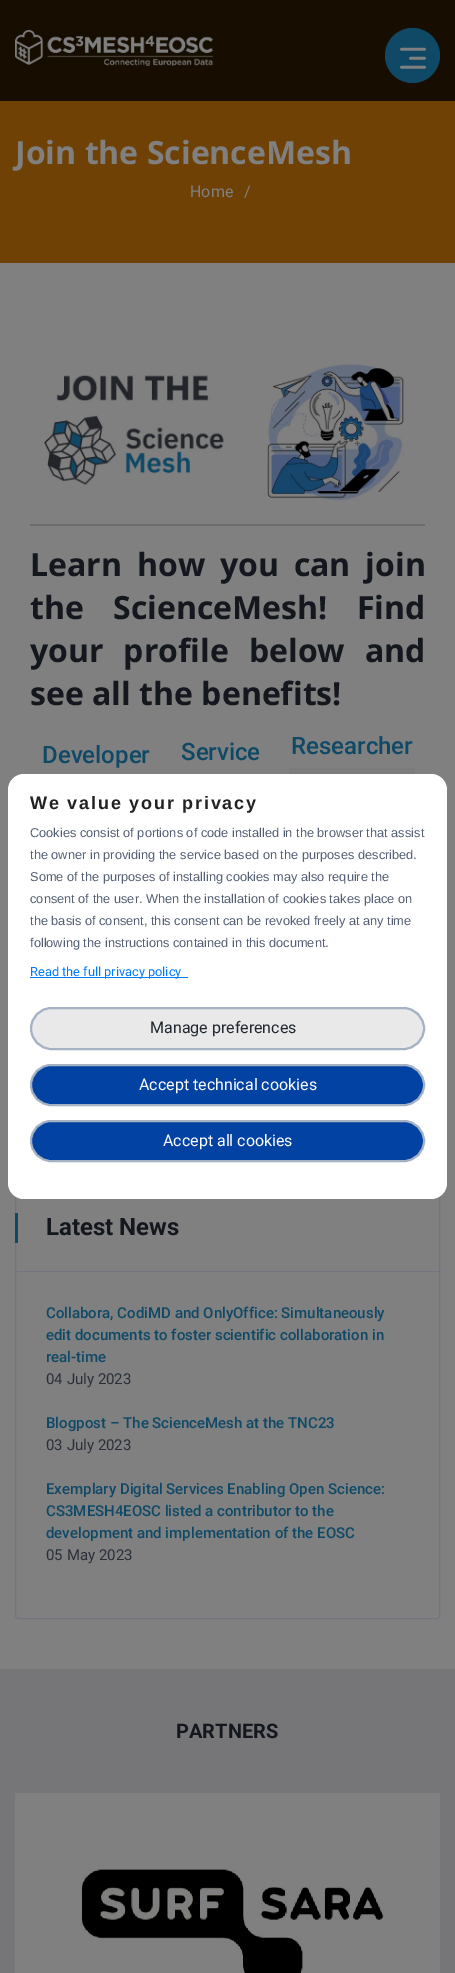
%!PS
<< /PageSize [455 1973] >> setpagedevice
/roundrect { 5 dict begin { /r /h /w /y /x } { exch def } forall
  x r add y moveto x w add y 2 copy h add r arct x w add y h add x 1 index r arct
  x y h add x y r arct x y 2 copy exch w add exch r arct closepath end } def
/picture { 5 dict begin { /h /w /y /x /name } { exch def } forall
  gsave x y translate w h scale
  w h 8 [w 0 0 h 0 0] name (r) file false 3 colorimage grestore end } def
0 1973 translate 1 -1 scale
4 setmiterlimit
0.502 setgray
0 0 455 1973 rectfill
0.09 0.051 0.004 setrgbcolor
0 0 455 101 rectfill
(img1.rgb) 15 30 198 36 picture
0.059 0.286 0.4 setrgbcolor
newpath 412.5 55.5 27.5 0 360 arc closepath fill
(img2.rgb) 400 47 26 22 picture
0.439 0.255 0.02 setrgbcolor
0 101 455 162 rectfill
/OpenSans-Bold [32 0 0 -32 0 0] selectfont
0.502 setgray
15 164 moveto (Join the ScienceMesh) show
/Roboto-Regular [16 0 0 -16 0 0] selectfont
190 197 moveto (Home) show
244 197 moveto (/) show
(img3.rgb) 44 364 360 137 picture
0.416 0.424 0.431 setrgbcolor
30 525 395 1 rectfill
0.412 0.42 0.427 setrgbcolor
30 524 395 1 rectfill
/OpenSans-Bold [32 0 0 -32 0 0] selectfont
0.078 0.09 0.114 setrgbcolor
30 576 moveto 6.5 0 32 (Learn how you can join) widthshow
30 619 moveto 21 0 32 (the ScienceMesh! Find) widthshow
30 662 moveto 11.5 0 32 (your profile below and) widthshow
30 705 moveto (see all the benefits!) show
/Roboto-Medium [24 0 0 -24 0 0] selectfont
0.059 0.286 0.4 setrgbcolor
42 763 moveto (Developer) show
181 760 moveto (Service) show
291 754 moveto (Researcher) show
(img4.rgb) 289 768 126 6 picture
0.447 0.455 0.498 setrgbcolor
15.5 1182.5 424 436 2.5 roundrect stroke
16 1271 423 1 rectfill
0.059 0.286 0.4 setrgbcolor
15 1213 3 30 rectfill
/Roboto-Bold [24 0 0 -24 0 0] selectfont
0.078 0.09 0.114 setrgbcolor
46 1235 moveto (Latest News) show
/Roboto-Medium [15 0 0 -15 0 0] selectfont
0.059 0.286 0.4 setrgbcolor
46 1318 moveto (Collabora, CodiMD and OnlyOffice: Simultaneously) show
46 1340 moveto (edit documents to foster scientific collaboration in) show
46 1362 moveto (real-time) show
/Roboto-Regular [15 0 0 -15 0 0] selectfont
0.165 0.184 0.224 setrgbcolor
46 1384 moveto (04 July 2023) show
/Roboto-Medium [15 0 0 -15 0 0] selectfont
0.059 0.286 0.4 setrgbcolor
46 1428 moveto (Blogpost – The ScienceMesh at the TNC23) show
/Roboto-Regular [15 0 0 -15 0 0] selectfont
0.165 0.184 0.224 setrgbcolor
46 1450 moveto (03 July 2023) show
/Roboto-Medium [15 0 0 -15 0 0] selectfont
0.059 0.286 0.4 setrgbcolor
46 1494 moveto (Exemplary Digital Services Enabling Open Science:) show
46 1516 moveto (CS3MESH4EOSC listed a contributor to the) show
46 1538 moveto (development and implementation of the EOSC) show
/Roboto-Regular [15 0 0 -15 0 0] selectfont
0.165 0.184 0.224 setrgbcolor
46 1560 moveto (05 May 2023) show
0.463 0.459 0.471 setrgbcolor
0 1669 455 304 rectfill
/Roboto-Bold [20 0 0 -20 0 0] selectfont
0.078 0.09 0.114 setrgbcolor
176 1738 moveto (PARTNERS) show
(img5.rgb) 15 1793 425 180 picture
1 setgray
8 774 439 425 16 roundrect fill
/LiberationSans-Bold [18 0 0 -18 0 0] selectfont
0.133 setgray
30 809 moveto 1.8 0 (We value your privacy) ashow
/LiberationSans-Regular [12.8 0 0 -12.8 0 0] selectfont
0.325 0.369 0.447 setrgbcolor
30 837 moveto (Cookies consist of portions of code installed in the browser that assist) show
30 859 moveto (the owner in providing the service based on the purposes described.) show
30 881 moveto (Some of the purposes of installing cookies may also require the) show
30 903 moveto (consent of the user. When the installation of cookies takes place on) show
30 925 moveto (the basis of consent, this consent can be revoked freely at any time) show
30 947 moveto (following the instructions contained in this document.) show
0 0.482 1 setrgbcolor
30 977 158 1 rectfill
/Roboto-Regular [12.8 0 0 -12.8 0 0] selectfont
30 976 moveto (Read the full privacy policy) show
0.914 0.914 0.918 setrgbcolor
31 1008 393 41 20.5 roundrect gsave fill grestore
0.647 0.698 0.765 setrgbcolor
2 setlinewidth
stroke
/Roboto-Regular [16 0 0 -16 0 0] selectfont
0.133 0.157 0.192 setrgbcolor
150 1033 moveto (Manage preferences) show
0.008 0.259 0.635 setrgbcolor
31 1065 393 40 20 roundrect gsave fill grestore
0.647 0.698 0.765 setrgbcolor
stroke
1 setgray
139 1090 moveto (Accept technical cookies) show
0.008 0.259 0.635 setrgbcolor
31 1121 393 40 20 roundrect gsave fill grestore
0.647 0.698 0.765 setrgbcolor
stroke
1 setgray
163 1146 moveto (Accept all cookies) show
showpage
